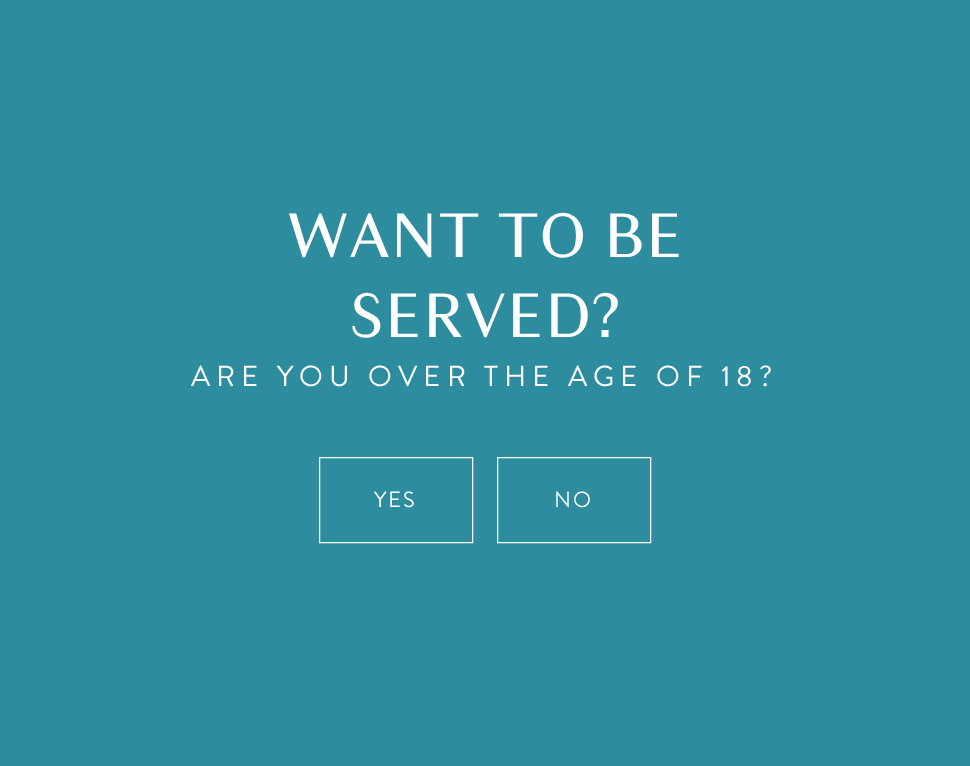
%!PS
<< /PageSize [970 766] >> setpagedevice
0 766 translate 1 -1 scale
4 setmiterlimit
0.176 0.549 0.62 setrgbcolor
0 0 970 766 rectfill
/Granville-Regular [66 0 0 -66 0 0] selectfont
1 setgray
287 257 moveto (WANT TO BE) show
348 337 moveto (SERVED?) show
/BrandonGrotesque-Regular [29 0 0 -29 0 0] selectfont
191 386 moveto 6 0 (ARE YOU OVER THE AGE OF 18?) ashow
319.5 457.5 153 85 rectstroke
/BrandonGrotesque-Regular [22 0 0 -22 0 0] selectfont
374 507 moveto 2 0 (YES) ashow
497.5 457.5 153 85 rectstroke
554 507 moveto 2 0 (NO) ashow
showpage
